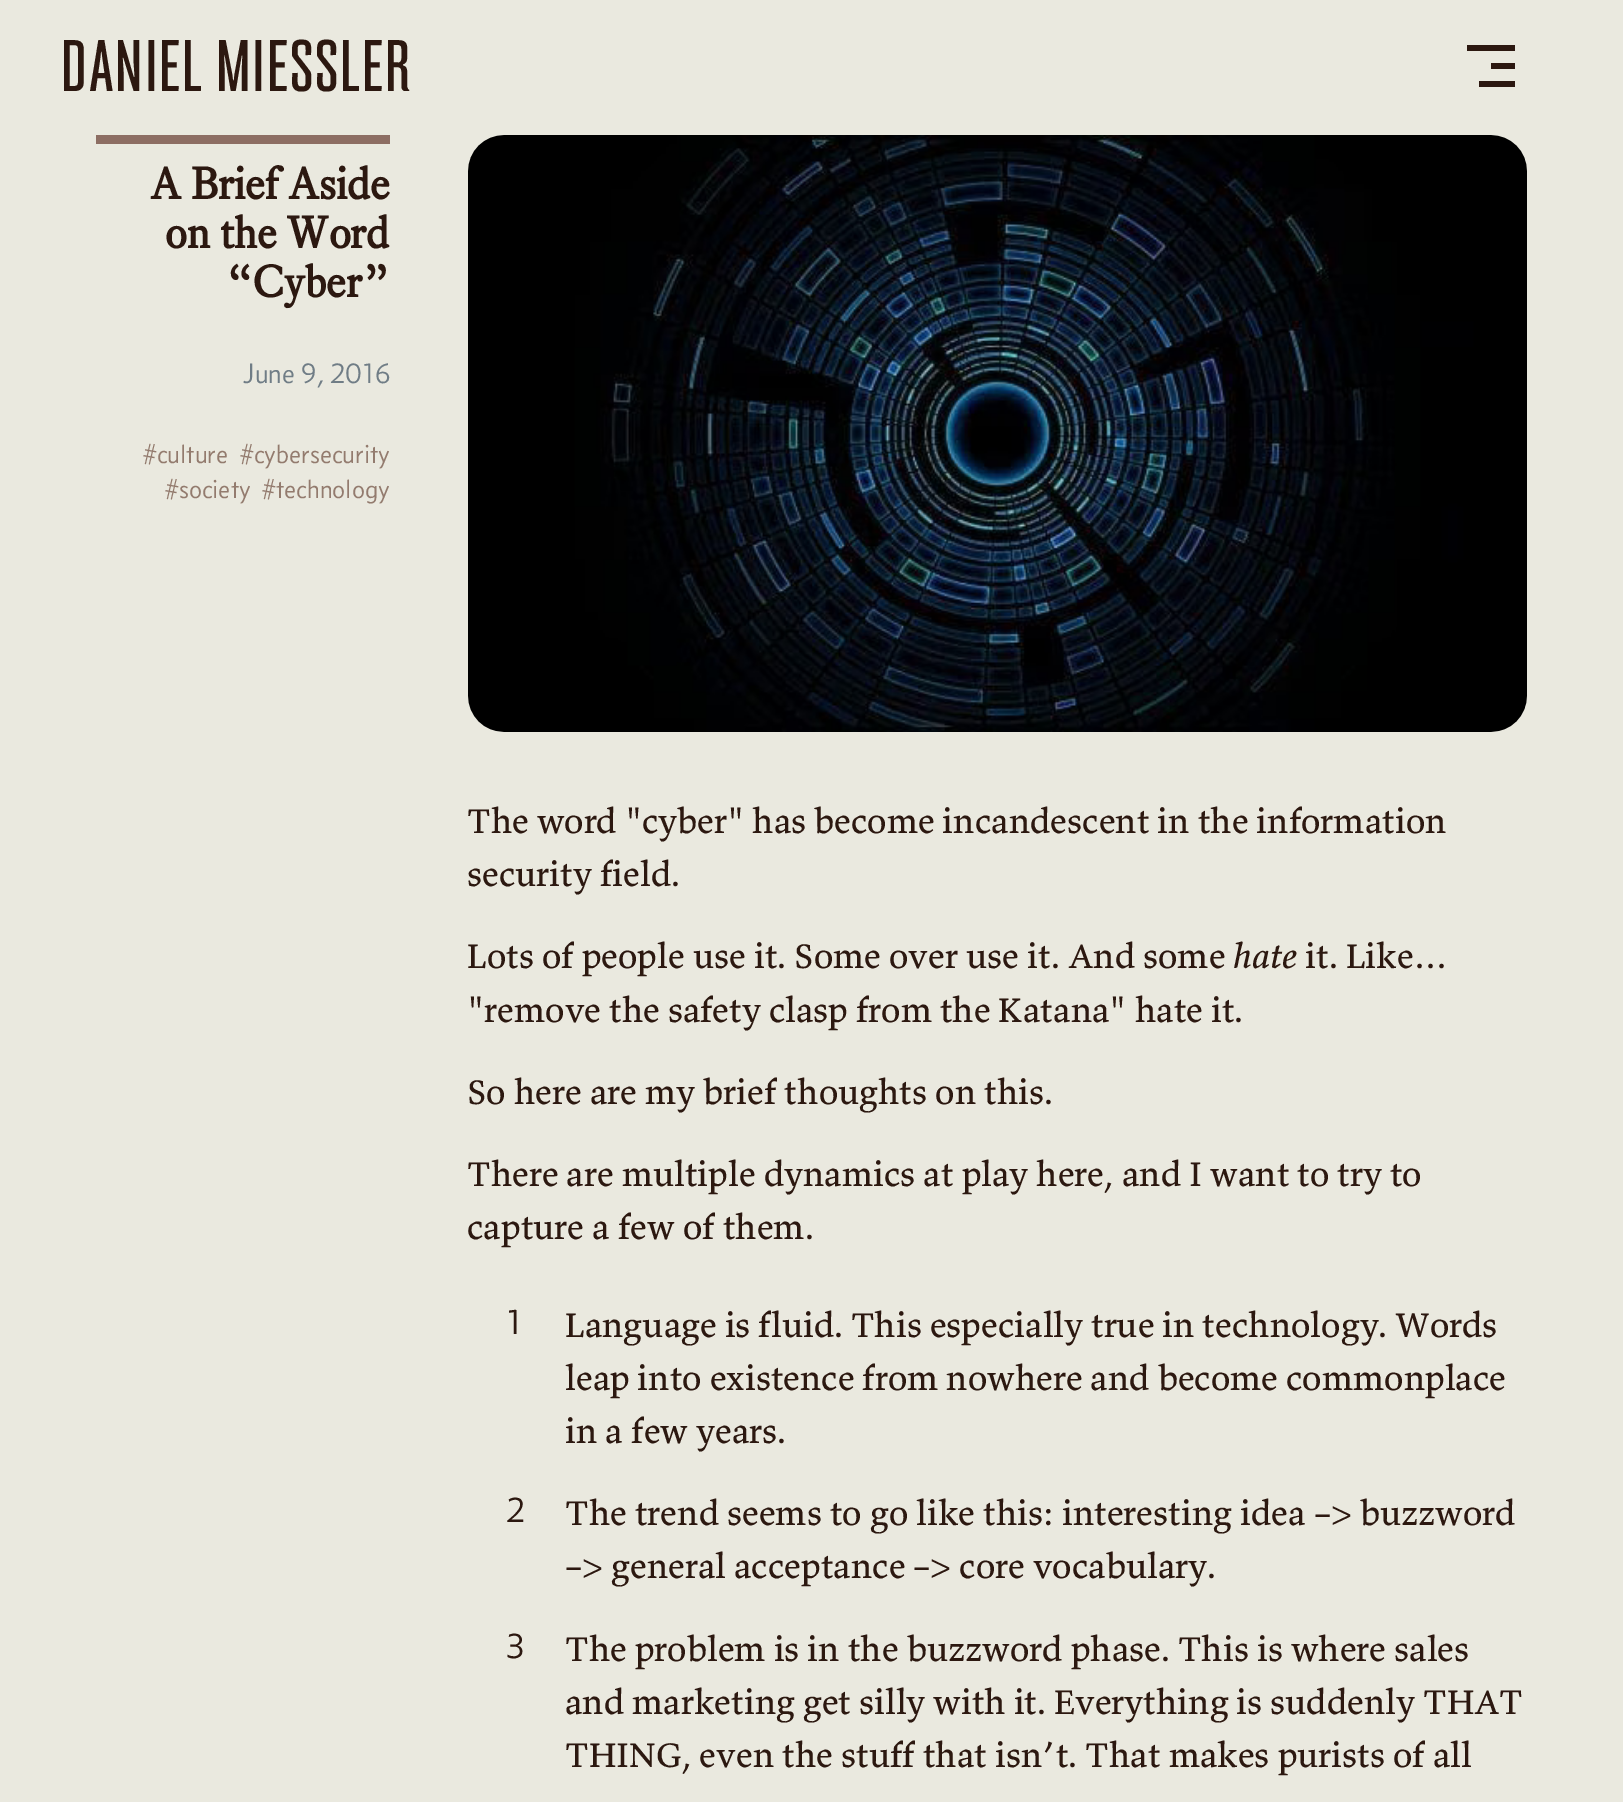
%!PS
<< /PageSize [1623 1802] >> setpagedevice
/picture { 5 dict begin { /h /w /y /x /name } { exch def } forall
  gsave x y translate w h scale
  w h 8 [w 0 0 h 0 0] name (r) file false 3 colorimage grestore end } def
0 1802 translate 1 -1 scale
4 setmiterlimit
0.918 0.914 0.875 setrgbcolor
0 0 1623 1802 rectfill
/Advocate-ExtraLight [75 0 0 -75 0 0] selectfont
0.173 0.094 0.063 setrgbcolor
60 91 moveto (DANIEL MIESSLER) show
1467 45 48 6 rectfill
1491 63 24 6 rectfill
1479 81 36 6 rectfill
0.553 0.431 0.388 setrgbcolor
96 135 294 9 rectfill
/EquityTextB-Bold [44.25 0 0 -44.25 0 0] selectfont
0.173 0.094 0.063 setrgbcolor
150 199 moveto (A Brief Aside) show
165 248 moveto (on the Word) show
226 297 moveto (“Cyber”) show
/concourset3-Light [28.5 0 0 -28.5 0 0] selectfont
0.439 0.49 0.525 setrgbcolor
243 383 moveto (June 9, 2016) show
/concourset3-Light [26.75 0 0 -26.75 0 0] selectfont
0.576 0.482 0.431 setrgbcolor
143 463 moveto (#culture) show
240 463 moveto (#cybersecurity) show
165 498 moveto (#society) show
262 498 moveto (#technology) show
(img1.rgb) 468 135 1059 597 picture
/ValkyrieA-Regular [35.45 0 0 -35.45 0 0] selectfont
0.173 0.094 0.063 setrgbcolor
467 833 moveto -0.25 0 32 (The word "cyber" has become incandescent in the information) widthshow
467 886 moveto (security field.) show
467 968 moveto (Lots of people use it. Some over use it. And some) show
/ValkyrieA-Italic [35.45 0 0 -35.45 0 0] selectfont
1233 968 moveto (hate) show
/ValkyrieA-Regular [35.45 0 0 -35.45 0 0] selectfont
1305 968 moveto (it. Like…) show
467 1022 moveto -0.25 0 32 ("remove the safety clasp from the Katana" hate it.) widthshow
467 1104 moveto (So here are my brief thoughts on this.) show
467 1186 moveto -0.1 0 32 (There are multiple dynamics at play here, and I want to try to) widthshow
467 1239 moveto (capture a few of them.) show
/concourset3-Light [35.45 0 0 -35.45 0 0] selectfont
506 1334 moveto (1) show
/ValkyrieA-Regular [35.45 0 0 -35.45 0 0] selectfont
565 1337 moveto -0.25 0 32 (Language is fluid. This especially true in technology. Words) widthshow
565 1390 moveto -0.25 0 32 (leap into existence from nowhere and become commonplace) widthshow
565 1443 moveto (in a few years.) show
/concourset3-Light [35.45 0 0 -35.45 0 0] selectfont
506 1522 moveto (2) show
/ValkyrieA-Regular [35.45 0 0 -35.45 0 0] selectfont
565 1525 moveto -0.1 0 32 (The trend seems to go like this: interesting idea –> buzzword) widthshow
565 1578 moveto -0.25 0 32 (–> general acceptance –> core vocabulary.) widthshow
/concourset3-Light [35.45 0 0 -35.45 0 0] selectfont
506 1658 moveto (3) show
/ValkyrieA-Regular [35.45 0 0 -35.45 0 0] selectfont
565 1661 moveto -0.1 0 32 (The problem is in the buzzword phase. This is where sales) widthshow
565 1714 moveto -0.25 0 32 (and marketing get silly with it. Everything is suddenly THAT) widthshow
565 1767 moveto -0.1 0 32 (THING, even the stuff that isn’t. That makes purists of all) widthshow
showpage
